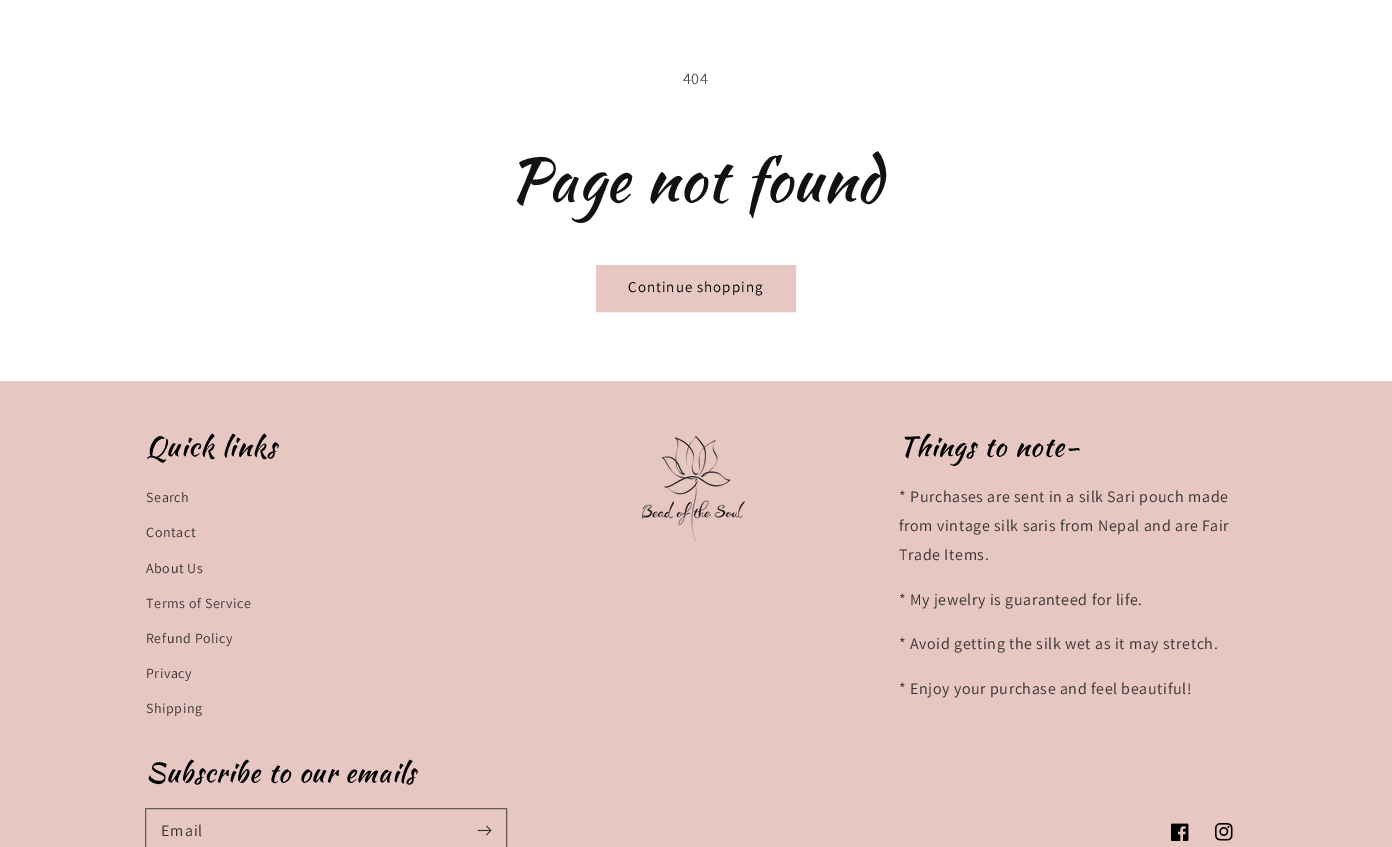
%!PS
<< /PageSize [1392 847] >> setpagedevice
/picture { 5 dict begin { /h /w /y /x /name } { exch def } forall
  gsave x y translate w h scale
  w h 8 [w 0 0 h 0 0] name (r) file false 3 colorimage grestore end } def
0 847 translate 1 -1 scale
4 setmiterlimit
1 setgray
0 0 1392 847 rectfill
/Assistant-Regular [16 0 0 -16 0 0] selectfont
0.302 setgray
683 84 moveto 0.6 0 (404) ashow
/KaushanScript-Regular [60 0 0 -60 0 0] selectfont
0.071 setgray
509 201 moveto 0.9 0 (Page not found) ashow
0.902 0.78 0.761 setrgbcolor
596.5 265.5 199 46 rectstroke
597 266 198 45 rectfill
/Assistant-Regular [15 0 0 -15 0 0] selectfont
0 setgray
628 292 moveto 1 0 (Continue shopping) ashow
0.902 0.78 0.761 setrgbcolor
0 381 1392 466 rectfill
/KaushanScript-Regular [27 0 0 -27 0 0] selectfont
0 setgray
146 456 moveto 0.9 0 (Quick links) ashow
/Assistant-Regular [14 0 0 -14 0 0] selectfont
0.227 0.196 0.192 setrgbcolor
146 502 moveto 0.6 0 (Search) ashow
146 537 moveto 0.6 0 (Contact) ashow
146 573 moveto 0.6 0 (About Us) ashow
146 608 moveto 0.6 0 (Terms of Service) ashow
146 643 moveto 0.6 0 (Refund Policy) ashow
146 678 moveto 0.6 0 (Privacy) ashow
146 713 moveto 0.6 0 (Shipping) ashow
(img1.rgb) 642 436 103 107 picture
/KaushanScript-Regular [27 0 0 -27 0 0] selectfont
0 setgray
899 456 moveto 0.9 0 (Things to note-) ashow
/Assistant-Regular [16 0 0 -16 0 0] selectfont
0.227 0.196 0.192 setrgbcolor
899 502 moveto 0.6 0 (* Purchases are sent in a silk Sari pouch made) ashow
899 531 moveto 0.6 0 (from vintage silk saris from Nepal and are Fair) ashow
899 560 moveto 0.6 0 (Trade Items.) ashow
899 605 moveto 0.6 0 (* My jewelry is guaranteed for life.) ashow
899 649 moveto 0.6 0 (* Avoid getting the silk wet as it may stretch.) ashow
899 694 moveto 0.6 0 (* Enjoy your purchase and feel beautiful!) ashow
/KaushanScript-Regular [27 0 0 -27 0 0] selectfont
0 setgray
146 782 moveto 0.9 0 (Subscribe to our emails) ashow
0.408 0.353 0.341 setrgbcolor
145.5 808.5 361 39 rectstroke
/Assistant-Regular [16 0 0 -16 0 0] selectfont
0.227 0.196 0.192 setrgbcolor
161 836 moveto 1 0 (Email) ashow
(img2.rgb) 477 825 15 11 picture
(img3.rgb) 1171 823 18 18 picture
(img4.rgb) 1215 823 18 18 picture
showpage
